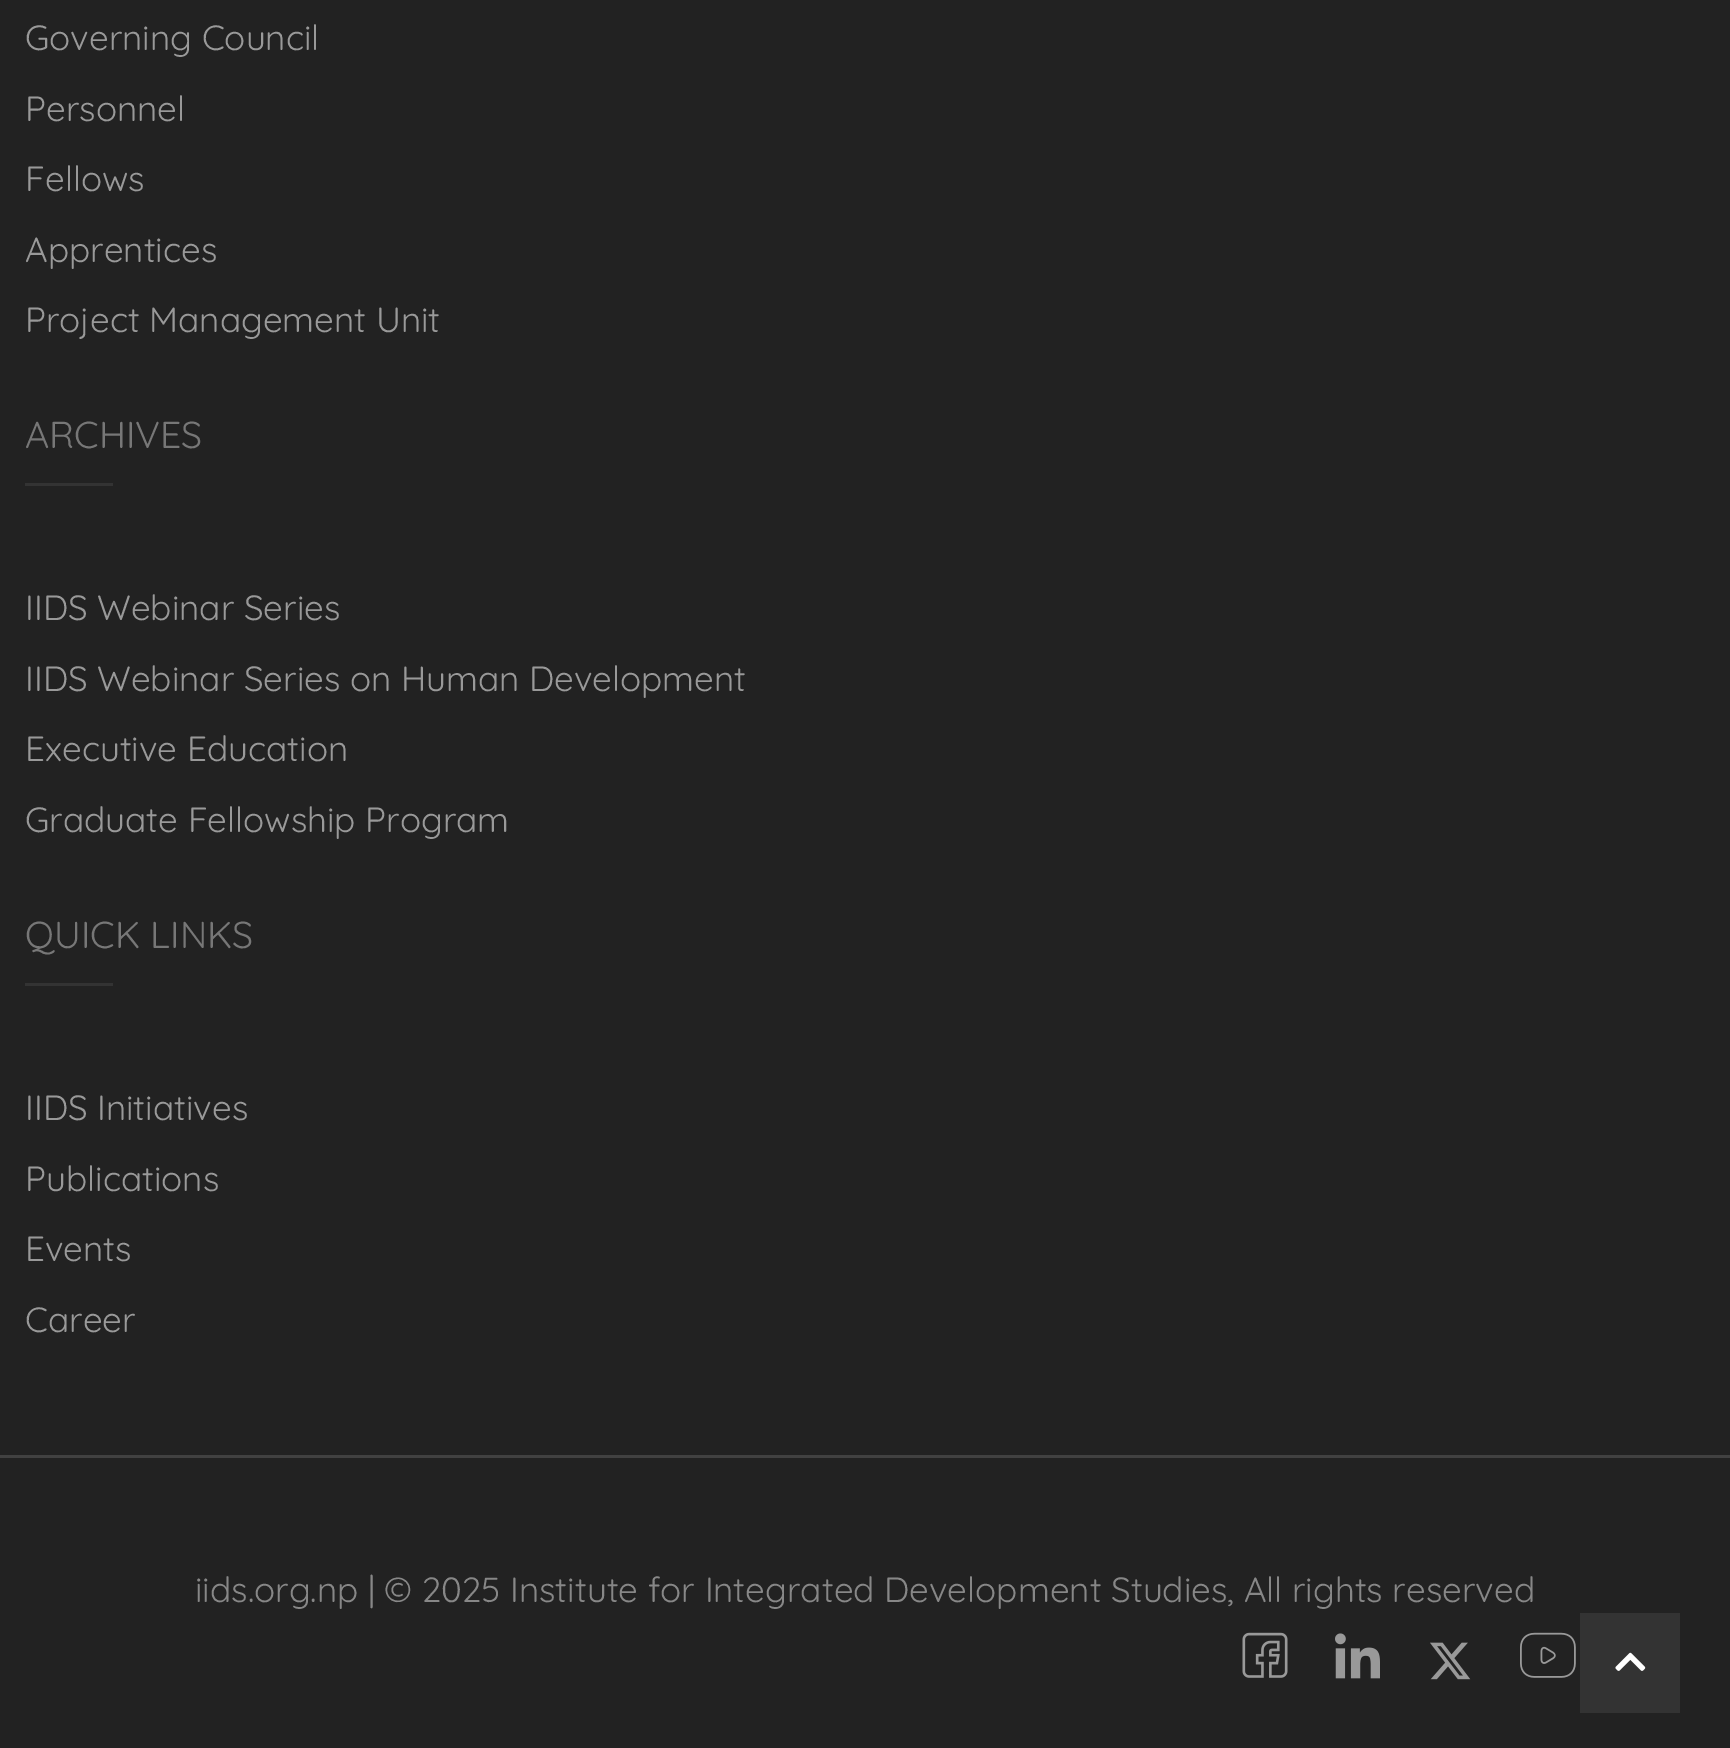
%!PS
<< /PageSize [1730 1748] >> setpagedevice
/picture { 5 dict begin { /h /w /y /x /name } { exch def } forall
  gsave x y translate w h scale
  w h 8 [w 0 0 h 0 0] name (r) file false 3 colorimage grestore end } def
0 1748 translate 1 -1 scale
4 setmiterlimit
0.133 setgray
0 0 1730 1748 rectfill
/Quicksand-Regular [35 0 0 -35 0 0] selectfont
0.6 setgray
25 50 moveto (Governing Council) show
25 121 moveto (Personnel) show
25 191 moveto (Fellows) show
25 262 moveto (Apprentices) show
25 332 moveto (Project Management Unit) show
/Quicksand-Regular [37.5 0 0 -37.5 0 0] selectfont
0.467 setgray
25 448 moveto (ARCHIVES) show
0.2 setgray
25 483 88 3 rectfill
/Quicksand-Regular [35 0 0 -35 0 0] selectfont
0.6 setgray
25 620 moveto (IIDS Webinar Series) show
25 691 moveto (IIDS Webinar Series on Human Development) show
25 761 moveto (Executive Education) show
25 832 moveto (Graduate Fellowship Program) show
/Quicksand-Regular [37.5 0 0 -37.5 0 0] selectfont
0.467 setgray
25 948 moveto (QUICK LINKS) show
0.2 setgray
25 983 88 3 rectfill
/Quicksand-Regular [35 0 0 -35 0 0] selectfont
0.6 setgray
25 1120 moveto (IIDS Initiatives) show
25 1191 moveto (Publications) show
25 1261 moveto (Events) show
25 1332 moveto (Career) show
0.255 setgray
0 1455 1730 3 rectfill
0.529 setgray
195 1602 moveto (iids.org.np | © 2025 Institute for Integrated Development Studies, All rights reserved) show
(img1.rgb) 1242 1632 46 46 picture
(img2.rgb) 1335 1633 45 46 picture
(img3.rgb) 1430 1642 41 38 picture
(img4.rgb) 1520 1632 56 46 picture
0.2 setgray
1580 1613 100 100 rectfill
(img5.rgb) 1615 1652 31 19 picture
showpage
